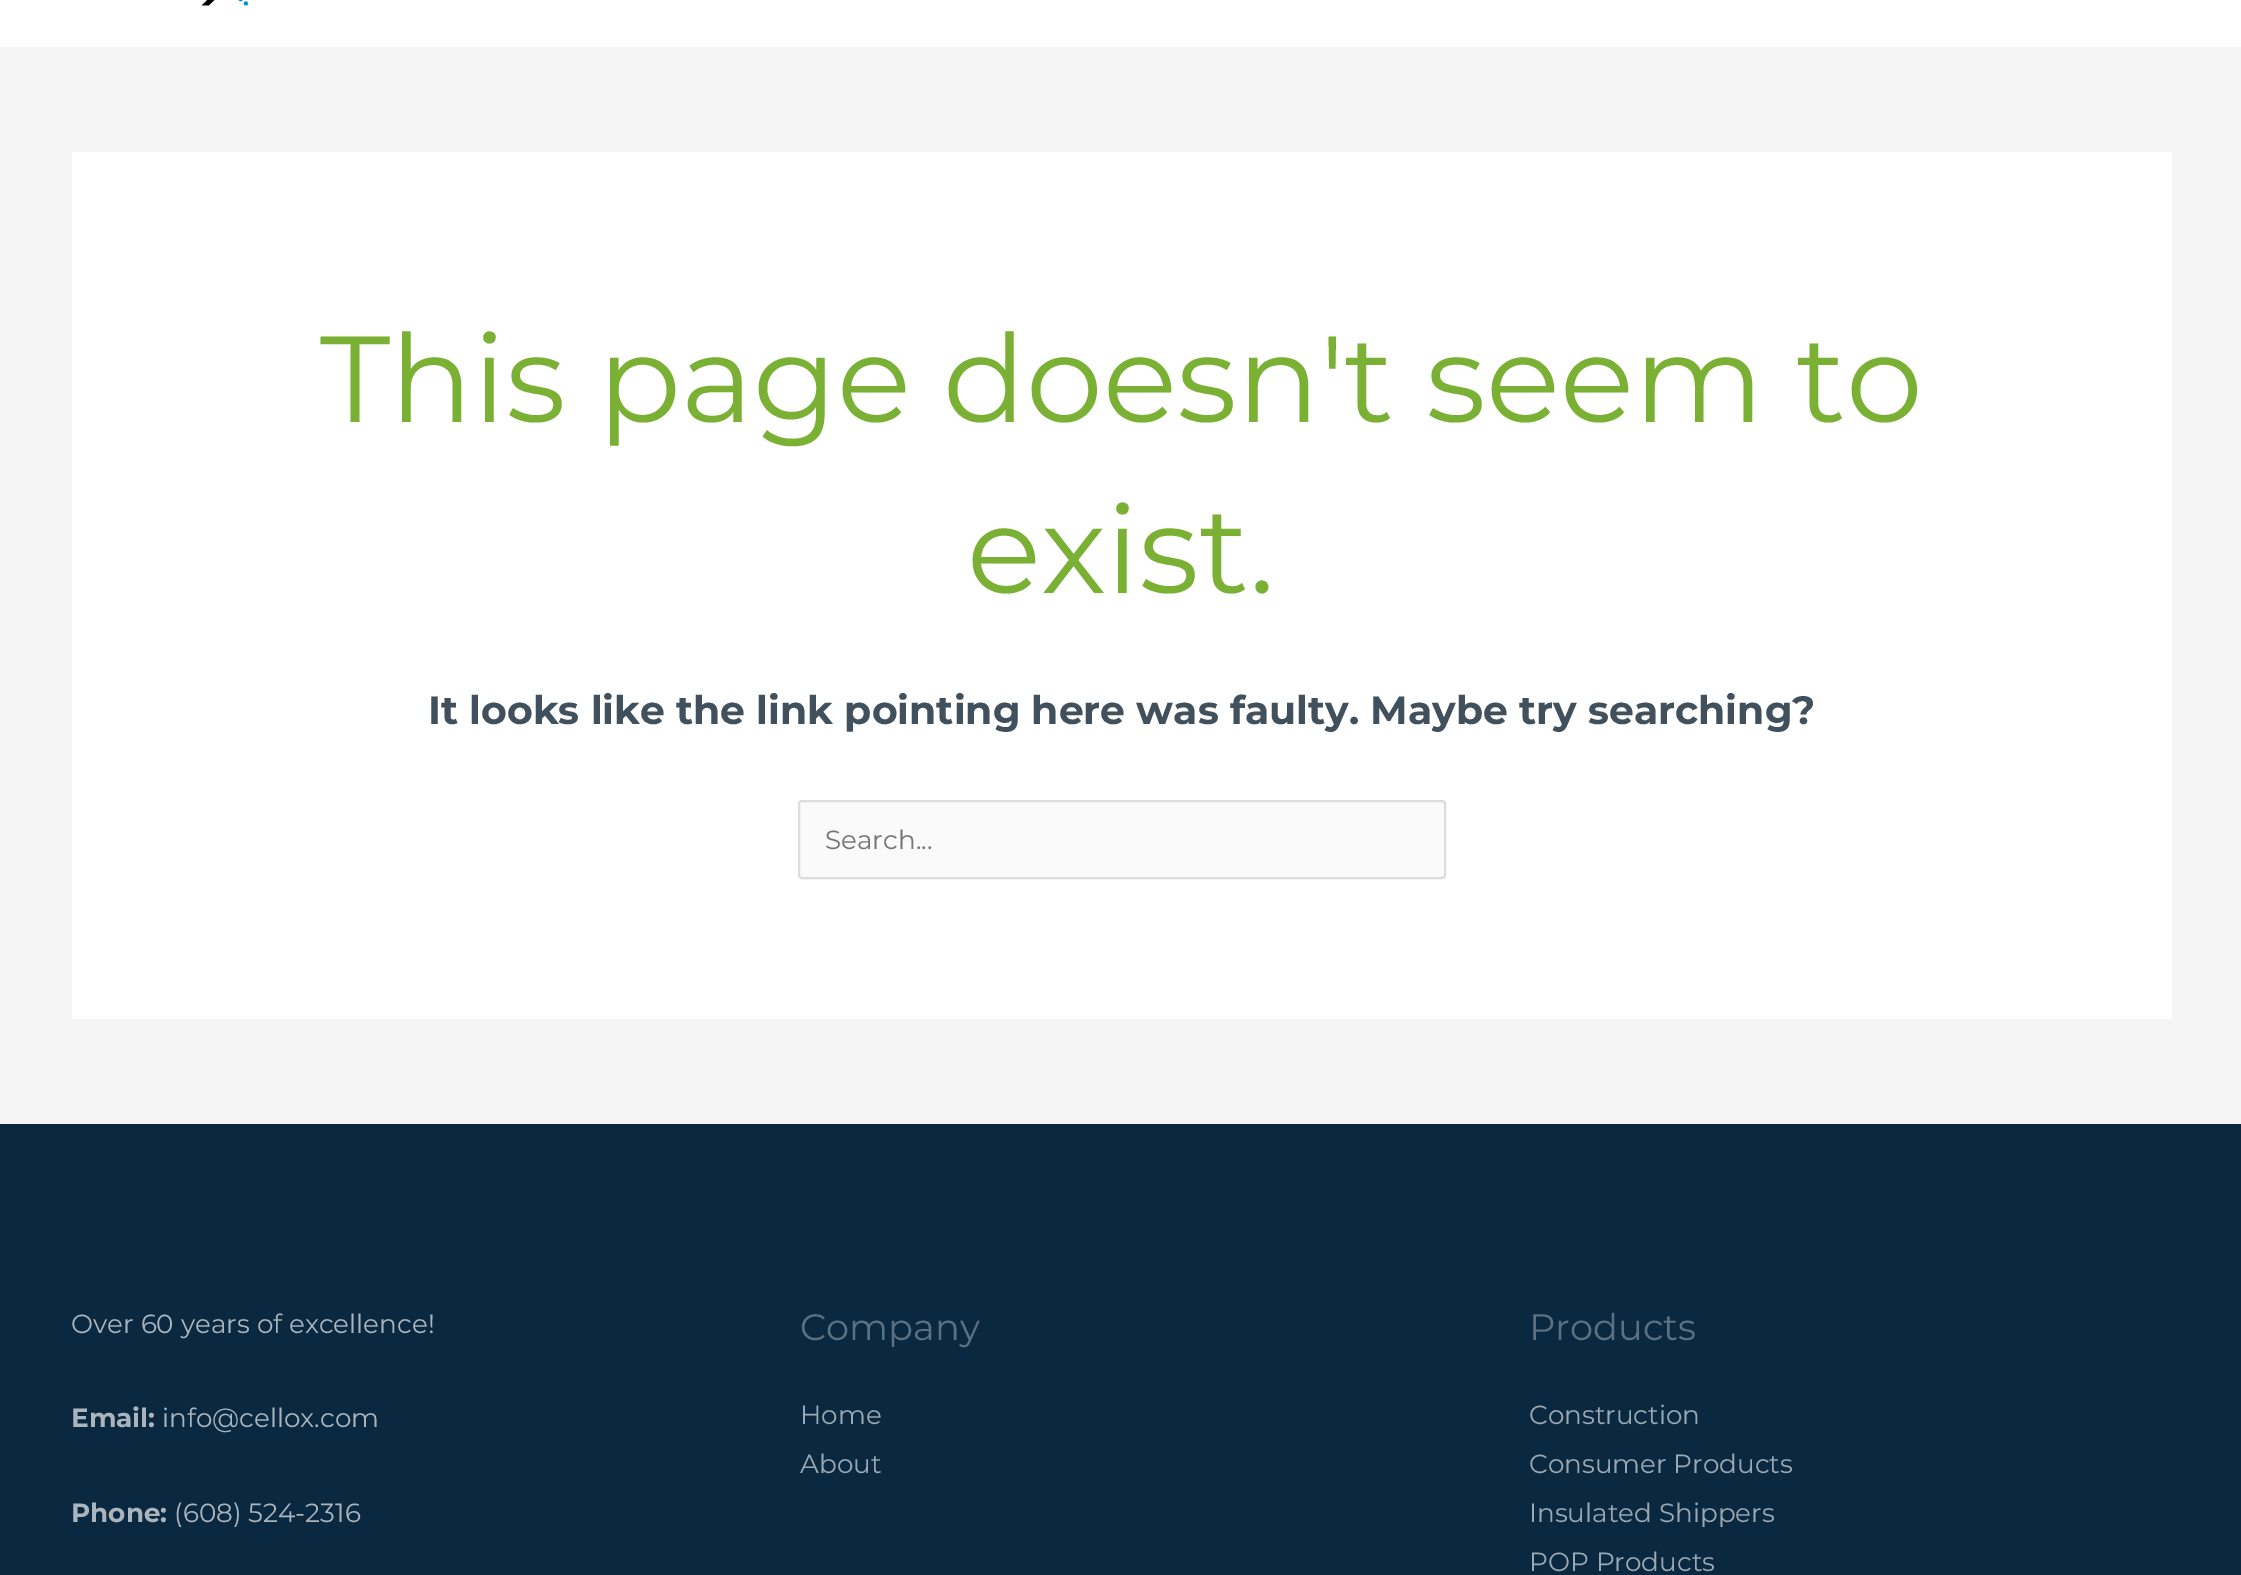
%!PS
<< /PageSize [2241 1575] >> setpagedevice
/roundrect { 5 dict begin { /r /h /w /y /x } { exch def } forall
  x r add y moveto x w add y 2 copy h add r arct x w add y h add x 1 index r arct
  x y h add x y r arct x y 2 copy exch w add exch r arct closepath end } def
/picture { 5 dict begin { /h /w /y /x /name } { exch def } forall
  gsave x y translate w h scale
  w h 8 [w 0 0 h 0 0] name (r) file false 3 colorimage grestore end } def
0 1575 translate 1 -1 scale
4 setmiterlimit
0.961 setgray
0 0 2241 1575 rectfill
1 setgray
0 0 2241 47 rectfill
(img1.rgb) 201 0 48 6 picture
72 152 2100 867 rectfill
/Montserrat-Regular [122.5 0 0 -122.5 0 0] selectfont
0.478 0.69 0.204 setrgbcolor
320 422 moveto (This page doesn't seem to) show
967 593 moveto (exist.) show
/Montserrat-Bold [39.4 0 0 -39.4 0 0] selectfont
0.255 0.314 0.365 setrgbcolor
428 724 moveto (It looks like the link pointing here was faulty. Maybe try searching?) show
0.98 setgray
799 801 646 77 3 roundrect gsave fill grestore
0.867 setgray
2 setlinewidth
stroke
/Montserrat-Regular [26.25 0 0 -26.25 0 0] selectfont
0.459 setgray
825 849 moveto (Search...) show
0.039 0.161 0.255 setrgbcolor
0 1124 2241 451 rectfill
0.663 0.706 0.741 setrgbcolor
71 1333 moveto (Over 60 years of excellence!) show
/Montserrat-Bold [26.25 0 0 -26.25 0 0] selectfont
71 1427 moveto (Email:) show
/Montserrat-Regular [26.25 0 0 -26.25 0 0] selectfont
162 1427 moveto (info@cellox.com) show
/Montserrat-Bold [26.25 0 0 -26.25 0 0] selectfont
71 1522 moveto (Phone:) show
/Montserrat-Regular [26.25 0 0 -26.25 0 0] selectfont
174 1522 moveto (\(608\) 524-2316) show
/Montserrat-Regular [36.75 0 0 -36.75 0 0] selectfont
0.357 0.439 0.502 setrgbcolor
800 1340 moveto (Company) show
/Montserrat-Regular [26.25 0 0 -26.25 0 0] selectfont
0.608 0.655 0.694 setrgbcolor
800 1424 moveto (Home) show
800 1473 moveto (About) show
/Montserrat-Regular [36.75 0 0 -36.75 0 0] selectfont
0.357 0.439 0.502 setrgbcolor
1529 1340 moveto (Products) show
/Montserrat-Regular [26.25 0 0 -26.25 0 0] selectfont
0.608 0.655 0.694 setrgbcolor
1529 1424 moveto (Construction) show
1529 1473 moveto (Consumer Products) show
1529 1522 moveto (Insulated Shippers) show
1529 1571 moveto (POP Products) show
showpage
